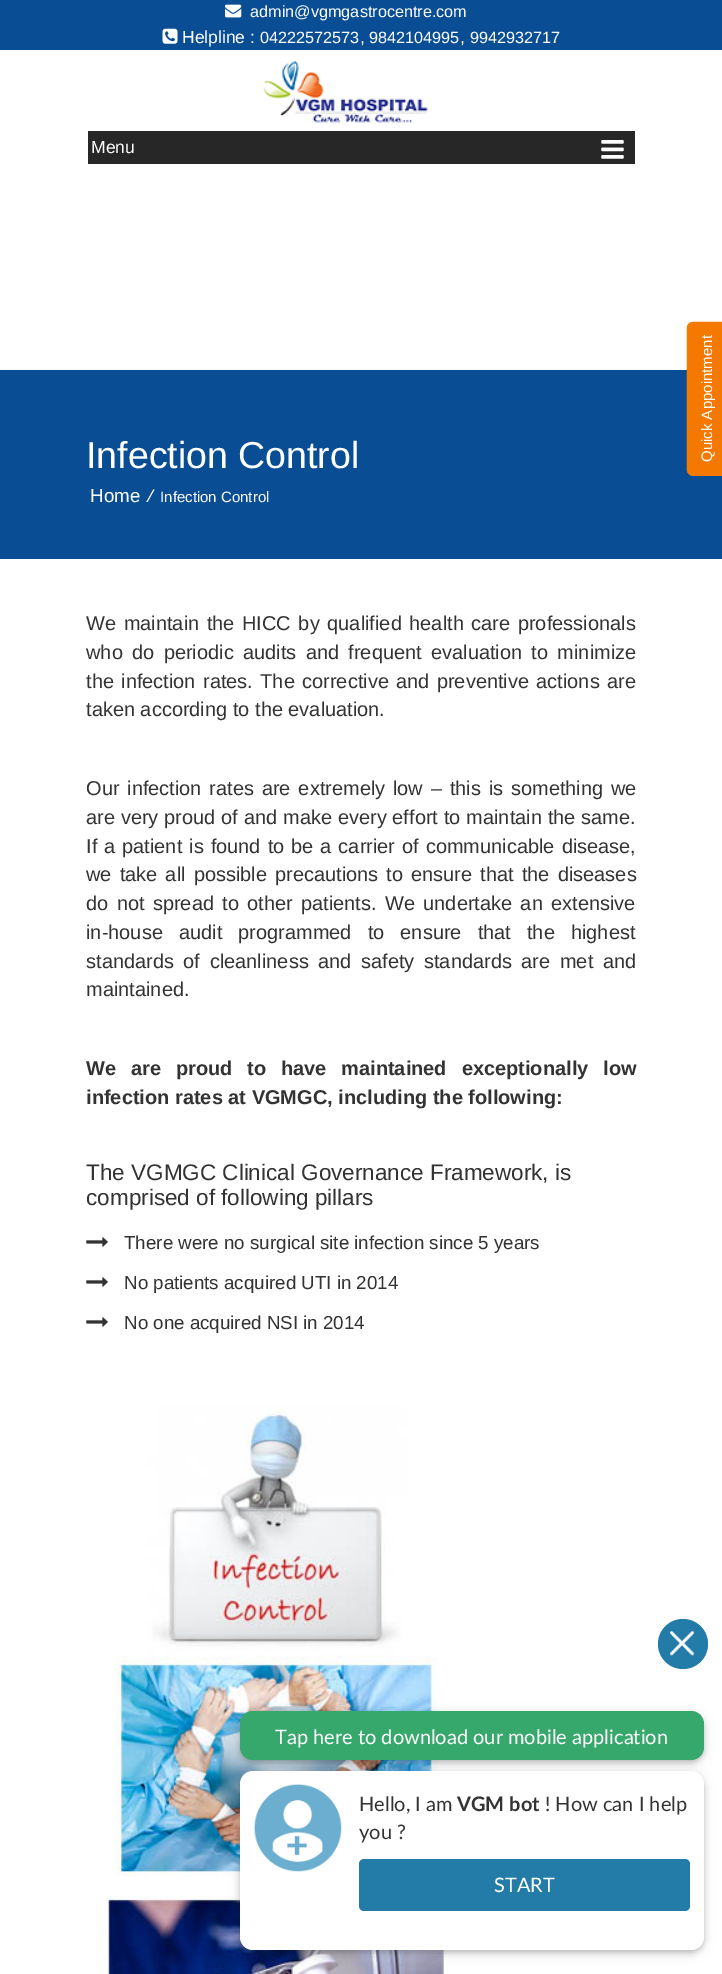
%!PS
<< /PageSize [722 1974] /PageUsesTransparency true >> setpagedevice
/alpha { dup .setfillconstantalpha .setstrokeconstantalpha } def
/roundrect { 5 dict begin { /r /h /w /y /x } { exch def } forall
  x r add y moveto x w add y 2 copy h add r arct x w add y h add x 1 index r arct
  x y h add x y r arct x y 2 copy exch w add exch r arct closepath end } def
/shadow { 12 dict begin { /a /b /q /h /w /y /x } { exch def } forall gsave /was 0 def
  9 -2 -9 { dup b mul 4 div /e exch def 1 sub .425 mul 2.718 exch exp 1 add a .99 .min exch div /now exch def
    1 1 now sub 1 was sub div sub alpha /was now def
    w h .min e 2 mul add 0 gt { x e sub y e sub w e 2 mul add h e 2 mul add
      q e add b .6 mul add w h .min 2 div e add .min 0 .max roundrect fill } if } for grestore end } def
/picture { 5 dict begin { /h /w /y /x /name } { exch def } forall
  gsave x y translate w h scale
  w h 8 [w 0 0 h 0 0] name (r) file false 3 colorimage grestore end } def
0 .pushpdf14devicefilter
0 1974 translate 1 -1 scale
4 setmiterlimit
1 setgray
0 0 722 1974 rectfill
0.035 0.306 0.58 setrgbcolor
0 0 722 50 rectfill
(img1.rgb) 225 4 17 14 picture
/LiberationSans-Regular [16.25 0 0 -16.25 0 0] selectfont
1 setgray
250 17 moveto (admin@vgmgastrocentre.com) show
(img2.rgb) 162 28 16 16 picture
/LiberationSans-Regular [17.5 0 0 -17.5 0 0] selectfont
182 43 moveto (Helpline :) show
/LiberationSans-Regular [16.25 0 0 -16.25 0 0] selectfont
260 43 moveto (04222572573) show
/LiberationSans-Regular [17.5 0 0 -17.5 0 0] selectfont
360 43 moveto (,) show
/LiberationSans-Regular [16.25 0 0 -16.25 0 0] selectfont
369 43 moveto (9842104995) show
/LiberationSans-Regular [17.5 0 0 -17.5 0 0] selectfont
460 43 moveto (,) show
/LiberationSans-Regular [16.25 0 0 -16.25 0 0] selectfont
470 43 moveto (9942932717) show
(img3.rgb) 263 61 165 62 picture
0.153 setgray
88 131 547 33 rectfill
/LiberationSans-Regular [17.5 0 0 -17.5 0 0] selectfont
1 setgray
91 153 moveto (Menu) show
(img4.rgb) 601 140 23 19 picture
0.035 0.306 0.58 setrgbcolor
0 370 722 189 rectfill
0.961 0.475 0 setrgbcolor
newpath 687 470 moveto 687 328 lineto 687 324 690 322 693 322 curveto 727 322 lineto 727 476 lineto 693 476 lineto 690 476 687 473 687 470 curveto closepath fill
1.2 setlinewidth
newpath 687.5 469.5 moveto 687.5 328 lineto 687.5 325 690.5 322.5 693.5 322.5 curveto 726.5 322.5 lineto 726.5 475 lineto 693.5 475 lineto 690.5 475 687.5 472.5 687.5 469.5 curveto closepath stroke
/LiberationSans-Regular [15 0 0 -15 0 0] selectfont
1 setgray
gsave 712 462 translate -90 rotate 0 0 moveto (Quick Appointment) show grestore
/LiberationSans-Regular [37.5 0 0 -37.5 0 0] selectfont
86 468 moveto (Infection Control) show
/LiberationSans-Regular [18.75 0 0 -18.75 0 0] selectfont
90 502 moveto (Home) show
/OpenSans-Italic [17.5 0 0 -17.5 0 0] selectfont
147 502 moveto (/) show
/LiberationSans-Regular [15 0 0 -15 0 0] selectfont
160 502 moveto (Infection Control) show
/LiberationSans-Regular [20 0 0 -20 0 0] selectfont
0.2 setgray
86 630 moveto 2 0 32 (We maintain the HICC by qualified health care professionals) widthshow
86 659 moveto 3.75 0 32 (who do periodic audits and frequent evaluation to minimize) widthshow
86 688 moveto 1.75 0 32 (the infection rates. The corrective and preventive actions are) widthshow
86 716 moveto (taken according to the evaluation.) show
86 795 moveto 2.25 0 32 (Our infection rates are extremely low – this is something we) widthshow
86 824 moveto 0.25 0 32 (are very proud of and make every effort to maintain the same.) widthshow
86 853 moveto 1.4 0 32 (If a patient is found to be a carrier of communicable disease,) widthshow
86 881 moveto 2.5 0 32 (we take all possible precautions to ensure that the diseases) widthshow
86 910 moveto 2.75 0 32 (do not spread to other patients. We undertake an extensive) widthshow
86 939 moveto 10.5 0 32 (in-house audit programmed to ensure that the highest) widthshow
86 968 moveto 4 0 32 (standards of cleanliness and safety standards are met and) widthshow
86 996 moveto (maintained.) show
/LiberationSans-Bold [20 0 0 -20 0 0] selectfont
86 1075 moveto 9.25 0 32 (We are proud to have maintained exceptionally low) widthshow
86 1104 moveto (infection rates at VGMGC, including the following:) show
/LiberationSans-Regular [22.5 0 0 -22.5 0 0] selectfont
86 1180 moveto (The VGMGC Clinical Governance Framework, is) show
86 1205 moveto (comprised of following pillars) show
(img5.rgb) 86 1237 22 10 picture
/LiberationSans-Regular [18.75 0 0 -18.75 0 0] selectfont
124 1249 moveto (There were no surgical site infection since 5 years) show
(img5.rgb) 86 1277 22 10 picture
124 1289 moveto (No patients acquired UTI in 2014) show
(img5.rgb) 86 1317 22 10 picture
124 1329 moveto (No one acquired NSI in 2014) show
(img6.rgb) 106 1406 340 568 picture
0.137 0.482 0.655 setrgbcolor
newpath 683 1644 25 0 360 arc closepath fill
(img7.rgb) 670 1631 25 25 picture
0 setgray
240 1714 464 49 13 6 0.12 shadow
240 1714 464 49 13 2.5 0.16 shadow
0.216 0.659 0.424 setrgbcolor
240 1711 464 49 13 roundrect fill
/Lato-Regular [20 0 0 -20 0 0] selectfont
1 setgray
275 1744 moveto (Tap here to download our mobile application) show
0 setgray
240 1774 464 179 13 6 0.12 shadow
240 1774 464 179 13 2.5 0.16 shadow
1 setgray
240 1771 464 179 13 roundrect fill
(img8.rgb) 254 1784 88 88 picture
0.2 setgray
359 1811 moveto (Hello, I am) show
/Lato-Bold [20 0 0 -20 0 0] selectfont
457 1811 moveto (VGM bot) show
/Lato-Regular [20 0 0 -20 0 0] selectfont
545 1811 moveto (! How can I help) show
359 1839 moveto (you ?) show
0.137 0.482 0.655 setrgbcolor
359 1859 331 52 5 roundrect fill
1 setgray
494 1892 moveto (START) show
.poppdf14devicefilter showpage
